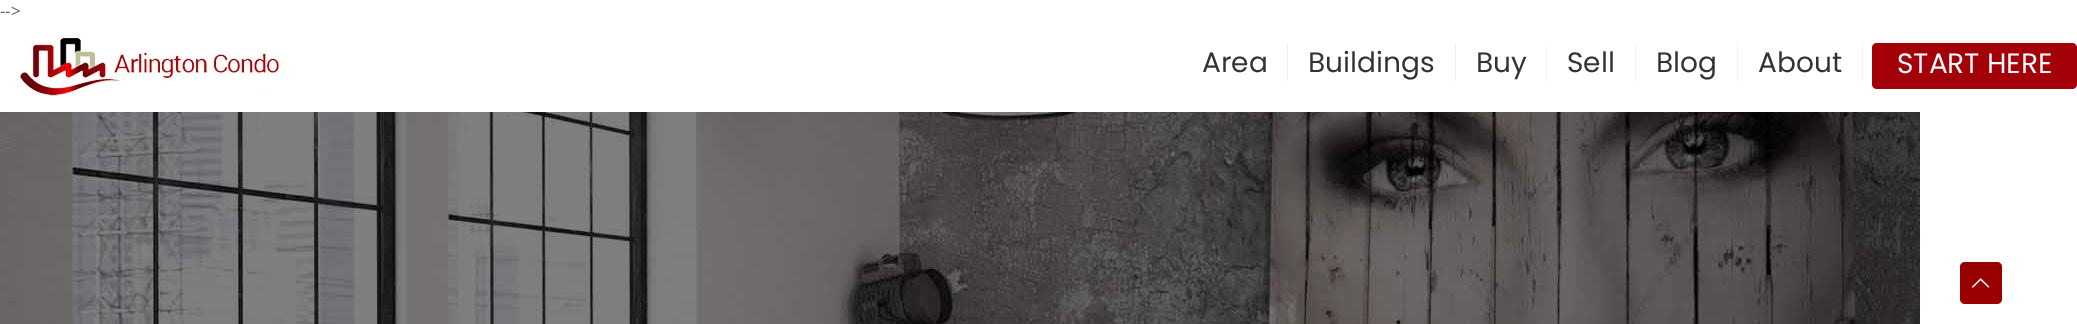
%!PS
<< /PageSize [2077 324] >> setpagedevice
/roundrect { 5 dict begin { /r /h /w /y /x } { exch def } forall
  x r add y moveto x w add y 2 copy h add r arct x w add y h add x 1 index r arct
  x y h add x y r arct x y 2 copy exch w add exch r arct closepath end } def
/picture { 5 dict begin { /h /w /y /x /name } { exch def } forall
  gsave x y translate w h scale
  w h 8 [w 0 0 h 0 0] name (r) file false 3 colorimage grestore end } def
0 324 translate 1 -1 scale
4 setmiterlimit
1 setgray
0 0 2077 324 rectfill
/OpenSans-Regular [17 0 0 -17 0 0] selectfont
0.384 setgray
0 17 moveto (-->) show
(img1.rgb) 20 38 260 58 picture
0.949 setgray
1287 44 1 38 rectfill
/Poppins-Regular [28 0 0 -28 0 0] selectfont
0.2 setgray
1202 72 moveto (Area) show
0.949 setgray
1455 44 1 38 rectfill
0.2 setgray
1308 72 moveto (Buildings) show
0.949 setgray
1546 44 1 38 rectfill
0.2 setgray
1476 72 moveto (Buy) show
0.949 setgray
1635 44 1 38 rectfill
0.2 setgray
1567 72 moveto (Sell) show
0.949 setgray
1737 44 1 38 rectfill
0.2 setgray
1656 72 moveto (Blog) show
0.949 setgray
1862 44 1 38 rectfill
0.2 setgray
1758 72 moveto (About) show
0.639 0 0.039 setrgbcolor
1872 43 205 46 5 roundrect fill
1 setgray
1897 73 moveto (START HERE) show
(img2.rgb) 0 112 1920 212 picture
0.6 0 0 setrgbcolor
1960 262 42 42 5 roundrect fill
(img3.rgb) 1972 278 18 10 picture
showpage
